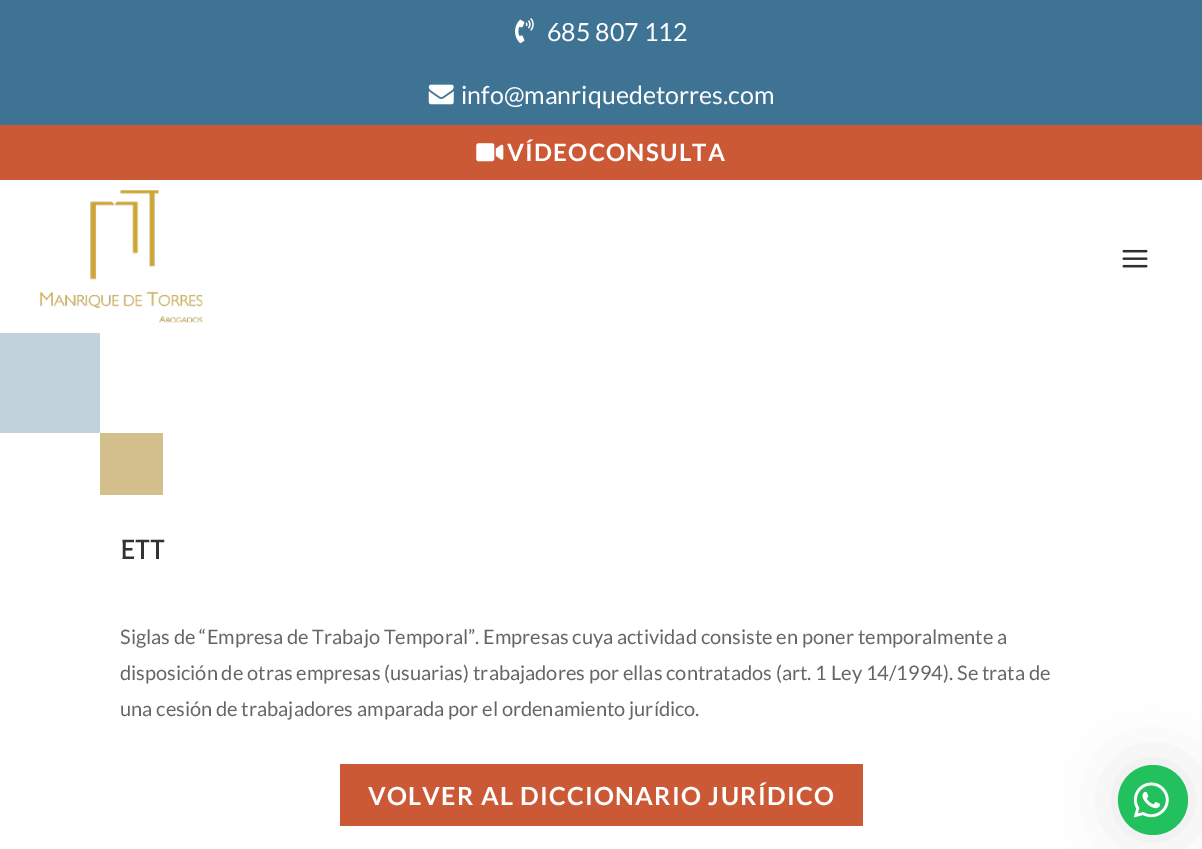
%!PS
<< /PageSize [1202 849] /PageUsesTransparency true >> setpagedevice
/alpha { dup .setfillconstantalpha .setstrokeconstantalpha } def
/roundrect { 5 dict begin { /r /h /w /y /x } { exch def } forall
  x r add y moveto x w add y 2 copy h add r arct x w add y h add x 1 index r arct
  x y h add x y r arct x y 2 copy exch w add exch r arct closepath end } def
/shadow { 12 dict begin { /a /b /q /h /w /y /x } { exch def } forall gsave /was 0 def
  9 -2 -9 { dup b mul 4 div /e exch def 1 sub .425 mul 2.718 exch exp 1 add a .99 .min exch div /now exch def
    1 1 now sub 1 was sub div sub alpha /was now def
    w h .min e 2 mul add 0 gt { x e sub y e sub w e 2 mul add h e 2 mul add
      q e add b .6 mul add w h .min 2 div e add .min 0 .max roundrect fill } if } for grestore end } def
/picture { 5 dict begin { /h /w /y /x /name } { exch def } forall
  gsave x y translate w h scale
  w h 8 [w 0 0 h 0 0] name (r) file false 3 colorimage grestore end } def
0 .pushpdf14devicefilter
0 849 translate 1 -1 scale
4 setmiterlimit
1 setgray
0 0 1202 849 rectfill
0.243 0.451 0.576 setrgbcolor
0 0 1202 125 rectfill
(img1.rgb) 515 18 19 26 picture
/Lato-Regular [25 0 0 -25 0 0] selectfont
1 setgray
547 41 moveto (685 807 112) show
(img2.rgb) 428 84 26 21 picture
461 104 moveto (info@manriquedetorres.com) show
0.8 0.349 0.208 setrgbcolor
0 125 1202 55 rectfill
(img3.rgb) 476 143 28 19 picture
/Lato-Bold [24 0 0 -24 0 0] selectfont
1 setgray
507 161 moveto 1.25 0 (VÍDEOCONSULTA) ashow
(img4.rgb) 40 190 163 133 picture
(img5.rgb) 1122 249 26 19 picture
0.757 0.824 0.867 setrgbcolor
0 333 100 100 rectfill
0.824 0.749 0.549 setrgbcolor
100 433 63 62 rectfill
/AlegreyaSans-Medium [30 0 0 -30 0 0] selectfont
0.2 setgray
120 559 moveto (ETT) show
/Lato-Regular [20 0 0 -20 0 0] selectfont
0.4 setgray
120 644 moveto (Siglas de “Empresa de Trabajo Temporal”. Empresas cuya actividad consiste en poner temporalmente a) show
120 680 moveto (disposición de otras empresas \(usuarias\) trabajadores por ellas contratados \(art. 1 Ley 14/1994\). Se trata de) show
120 716 moveto (una cesión de trabajadores amparada por el ordenamiento jurídico.) show
0.8 0.349 0.208 setrgbcolor
340 764 523 62 rectfill
/Lato-Bold [25 0 0 -25 0 0] selectfont
1 setgray
368 805 moveto 1.25 0 (VOLVER AL DICCIONARIO JURÍDICO) ashow
0 setgray
1118 765 70 70 35 31 0.1 shadow
0.133 0.757 0.369 setrgbcolor
newpath 1153 800 35 0 360 arc closepath fill
(img6.rgb) 1134 782 35 36 picture
.poppdf14devicefilter showpage
